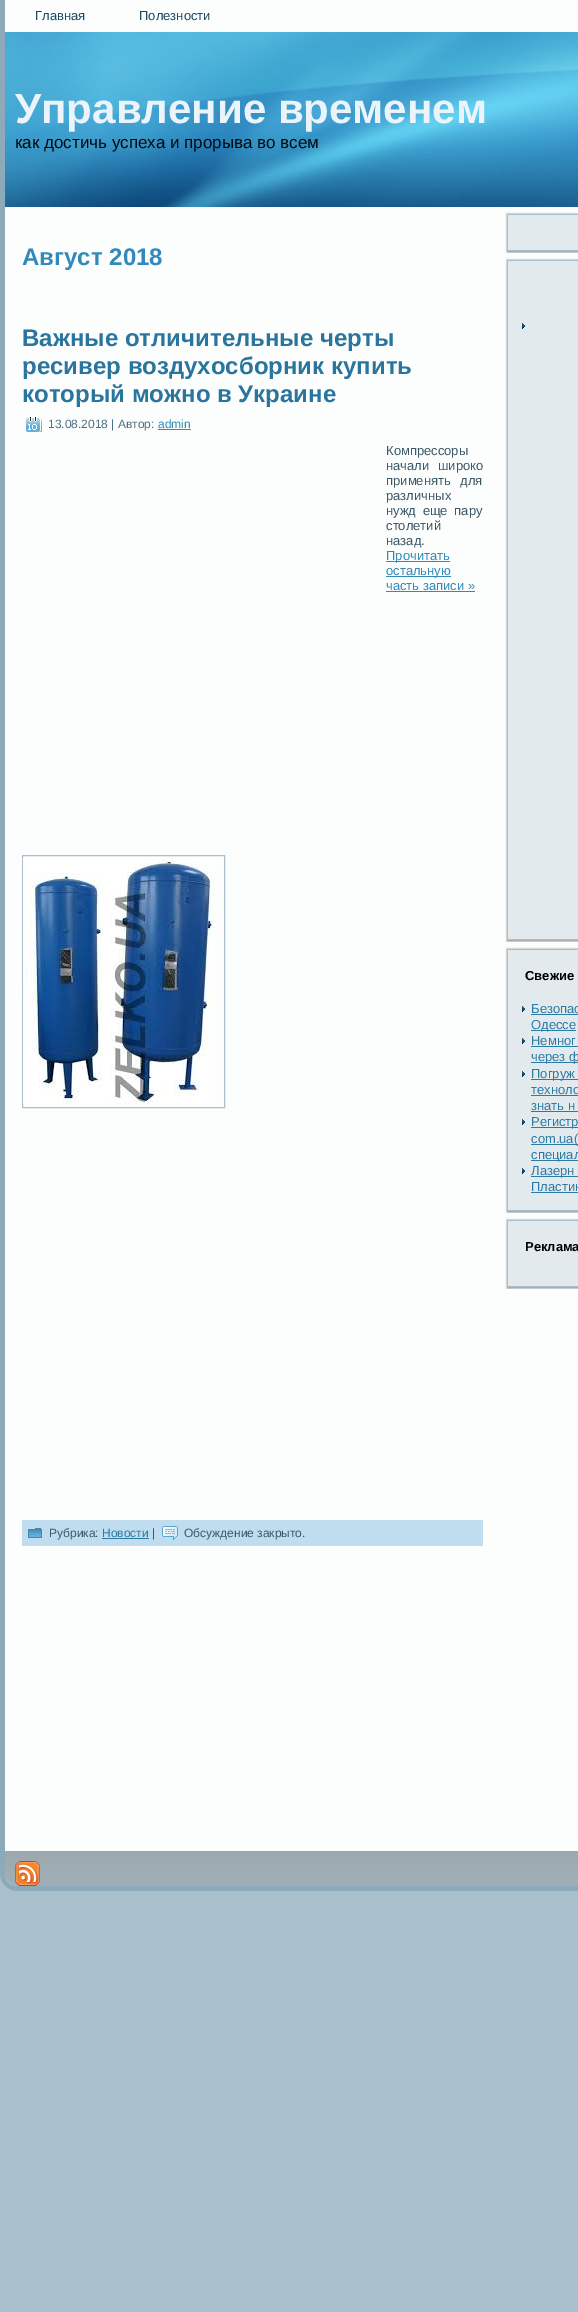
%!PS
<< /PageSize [578 2312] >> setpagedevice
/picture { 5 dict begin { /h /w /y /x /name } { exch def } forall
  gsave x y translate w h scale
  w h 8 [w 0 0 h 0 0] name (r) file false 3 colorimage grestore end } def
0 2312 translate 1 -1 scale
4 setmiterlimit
0.663 0.749 0.796 setrgbcolor
0 0 578 2312 rectfill
(img1.rgb) 0 0 18 13 picture
0.988 0.992 0.992 setrgbcolor
18 0 560 1873 rectfill
(img2.rgb) 0 13 18 1860 picture
/LiberationSans-Regular [13 0 0 -13 0 0] selectfont
0.102 0.282 0.38 setrgbcolor
35 20 moveto (Главная) show
139 20 moveto (Полезности) show
(img3.rgb) 5 32 573 175 picture
/LiberationSans-Bold [42 0 0 -42 0 0] selectfont
0.922 0.957 0.98 setrgbcolor
15 123 moveto (Управление временем) show
/LiberationSans-Regular [17 0 0 -17 0 0] selectfont
0.012 0.035 0.047 setrgbcolor
15 148 moveto (как достичь успеха и прорыва во всем) show
/LiberationSans-Bold [24 0 0 -24 0 0] selectfont
0.192 0.541 0.725 setrgbcolor
22 265 moveto (Август 2018) show
0.165 0.459 0.616 setrgbcolor
22 346 moveto (Важные отличительные черты) show
22 374 moveto (ресивер воздухосборник купить) show
22 402 moveto (который можно в Украине) show
(img4.rgb) 26 417 16 15 picture
/LiberationSans-Regular [12 0 0 -12 0 0] selectfont
0.306 0.439 0.514 setrgbcolor
48 428 moveto (13.08.2018 | Автор:) show
0.192 0.541 0.725 setrgbcolor
158 428 moveto (admin) show
158 429 33 1 rectfill
/LiberationSans-Regular [13 0 0 -13 0 0] selectfont
0.239 0.345 0.4 setrgbcolor
386 455 moveto (Компрессоры) show
386 470 moveto 5 0 32 (начали широко) widthshow
386 485 moveto 6 0 32 (применять для) widthshow
386 500 moveto (различных) show
386 515 moveto 3 0 32 (нужд еще пару) widthshow
386 530 moveto (столетий) show
386 545 moveto (назад.) show
0.192 0.541 0.725 setrgbcolor
386 561 64 1 rectfill
386 560 moveto (Прочитать) show
386 576 65 1 rectfill
386 575 moveto (остальную) show
386 590 moveto (часть записи ») show
386 591 89 1 rectfill
0.663 0.749 0.796 setrgbcolor
22.5 855.5 202 252 rectstroke
(img5.rgb) 23 857 192 247 picture
0.749 0.867 0.933 setrgbcolor
22 1520 461 26 rectfill
(img6.rgb) 28 1528 14 10 picture
/LiberationSans-Regular [12 0 0 -12 0 0] selectfont
0.239 0.345 0.4 setrgbcolor
49 1537 moveto (Рубрика:) show
0.173 0.482 0.647 setrgbcolor
102 1537 moveto (Новости) show
0.169 0.471 0.631 setrgbcolor
102 1538 47 1 rectfill
0.239 0.345 0.4 setrgbcolor
152 1537 moveto (|) show
(img7.rgb) 162 1526 16 14 picture
184 1537 moveto (Обсуждение закрыто.) show
(img8.rgb) 505 212 9 9 picture
(img9.rgb) 514 212 64 9 picture
(img10.rgb) 505 221 9 23 picture
0.886 0.918 0.933 setrgbcolor
514 221 64 23 rectfill
(img11.rgb) 505 244 9 9 picture
(img12.rgb) 514 244 64 9 picture
(img8.rgb) 505 258 9 9 picture
(img9.rgb) 514 258 64 9 picture
(img13.rgb) 505 267 9 666 picture
514 267 64 666 rectfill
(img14.rgb) 522 323 3 6 picture
(img11.rgb) 505 933 9 9 picture
(img12.rgb) 514 933 64 9 picture
(img8.rgb) 505 947 9 9 picture
(img9.rgb) 514 947 64 9 picture
(img15.rgb) 505 956 9 248 picture
514 956 64 248 rectfill
/LiberationSans-Bold [13 0 0 -13 0 0] selectfont
0 setgray
525 980 moveto (Свежие) show
(img14.rgb) 522 1006 3 6 picture
/LiberationSans-Regular [13 0 0 -13 0 0] selectfont
0.173 0.482 0.647 setrgbcolor
531 1013 moveto (Безопас) show
531 1014 47 1 rectfill
531 1030 45 1 rectfill
531 1029 moveto (Одессе) show
(img14.rgb) 522 1038 3 6 picture
531 1045 moveto (Немног) show
531 1046 47 1 rectfill
531 1062 47 1 rectfill
531 1061 moveto (через ф) show
(img14.rgb) 522 1071 3 6 picture
531 1079 47 1 rectfill
531 1078 moveto (Погруж) show
531 1094 moveto (техноло) show
531 1095 47 1 rectfill
531 1110 moveto (знать н) show
531 1111 47 1 rectfill
(img14.rgb) 522 1119 3 6 picture
531 1127 47 1 rectfill
531 1126 moveto (Регистр) show
531 1144 47 1 rectfill
531 1143 moveto (com.ua\() show
531 1160 47 1 rectfill
531 1159 moveto (специал) show
(img14.rgb) 522 1168 3 6 picture
531 1176 47 1 rectfill
531 1175 moveto (Лазерн) show
531 1191 moveto (Пластик) show
531 1192 47 1 rectfill
(img11.rgb) 505 1204 9 9 picture
(img12.rgb) 514 1204 64 9 picture
(img8.rgb) 505 1218 9 9 picture
(img9.rgb) 514 1218 64 9 picture
(img16.rgb) 505 1227 9 53 picture
0.886 0.918 0.933 setrgbcolor
514 1227 64 53 rectfill
/LiberationSans-Bold [13 0 0 -13 0 0] selectfont
0 setgray
525 1251 moveto (Реклама) show
(img11.rgb) 505 1280 9 9 picture
(img12.rgb) 514 1280 64 9 picture
(img19.rgb) 0 1873 18 18 picture
(img20.rgb) 18 1873 560 18 picture
(img17.rgb) 5 1851 573 35 picture
(img18.rgb) 15 1861 25 25 picture
showpage
